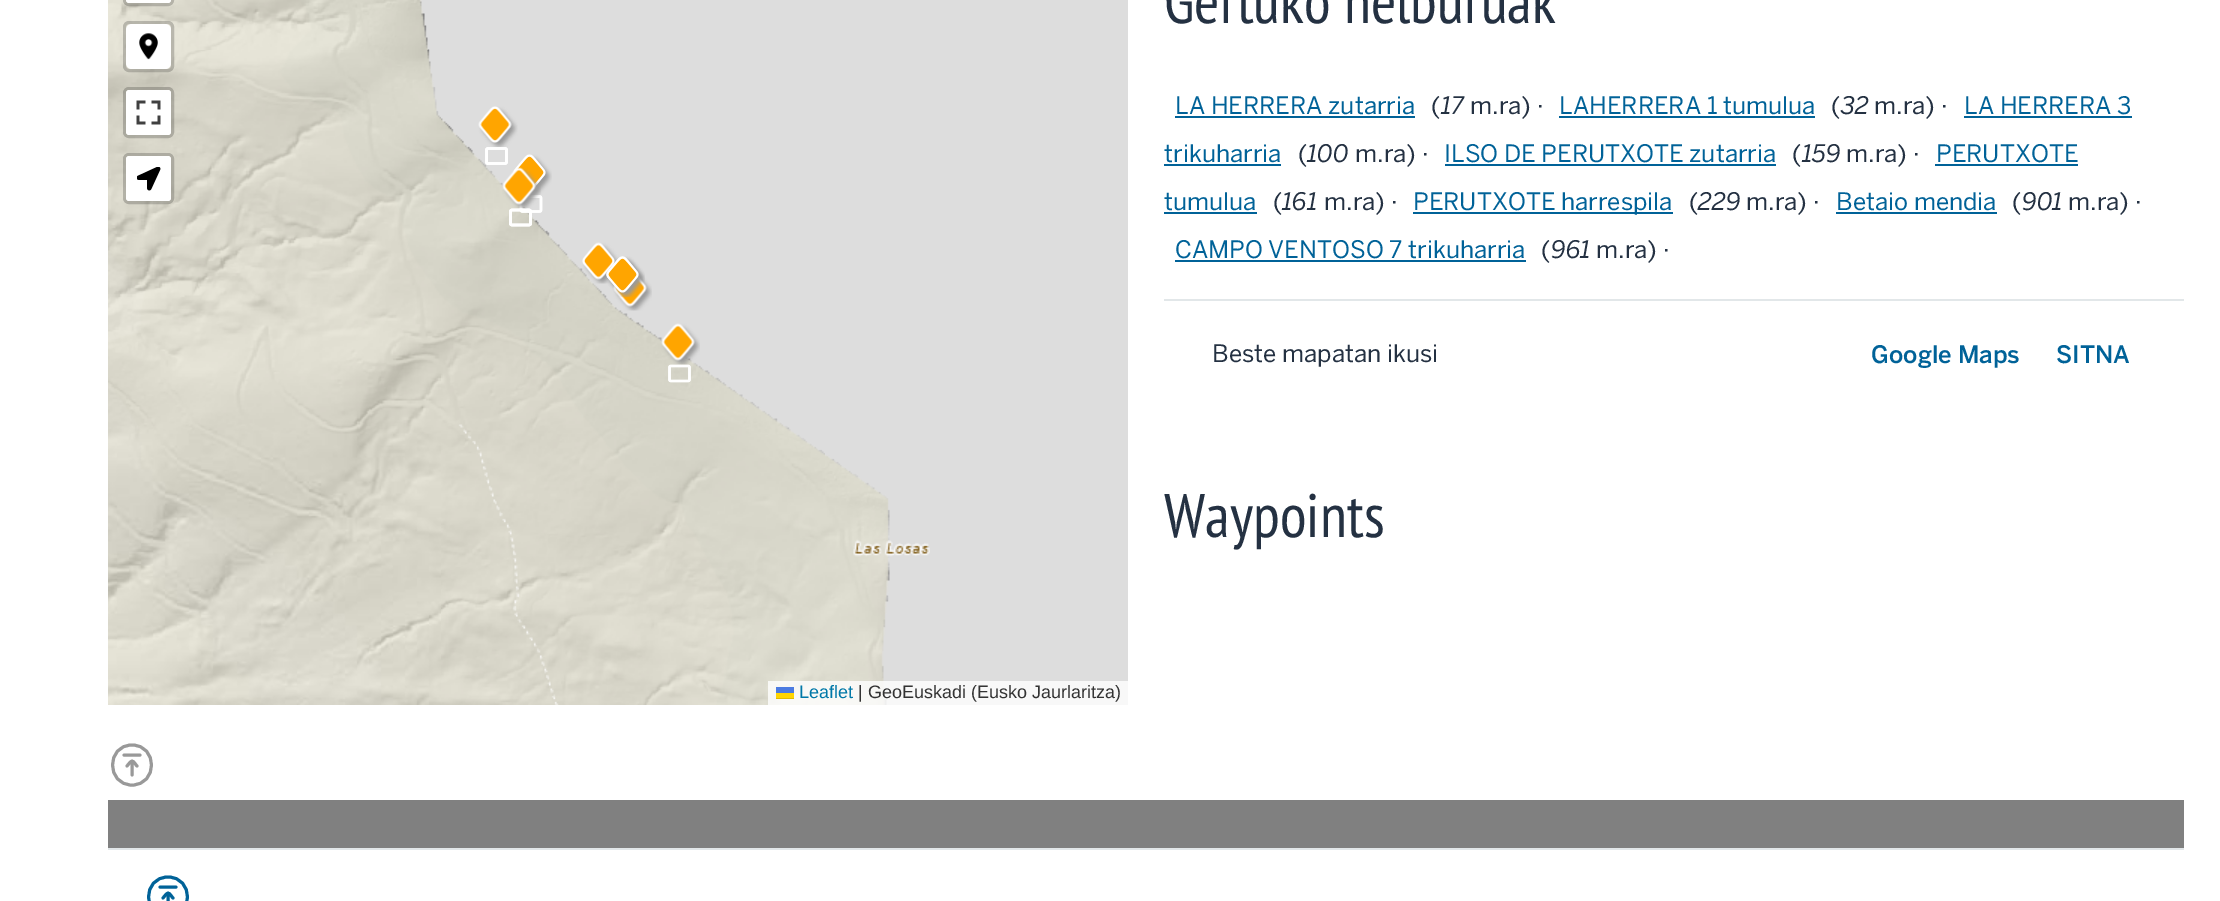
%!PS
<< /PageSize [2220 901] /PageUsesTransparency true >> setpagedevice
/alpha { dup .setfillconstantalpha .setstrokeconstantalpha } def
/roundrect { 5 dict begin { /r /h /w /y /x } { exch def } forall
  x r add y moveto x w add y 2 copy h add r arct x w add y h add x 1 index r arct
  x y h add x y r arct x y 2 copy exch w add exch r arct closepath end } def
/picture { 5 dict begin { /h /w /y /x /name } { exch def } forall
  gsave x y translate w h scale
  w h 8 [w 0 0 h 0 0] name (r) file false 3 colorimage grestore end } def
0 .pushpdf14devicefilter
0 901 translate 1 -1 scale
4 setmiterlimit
1 setgray
0 0 2220 901 rectfill
/PTSansNarrow-Regular [61.5 0 0 -61.5 0 0] selectfont
0.141 0.192 0.259 setrgbcolor
1164 23 moveto (Gertuko helburuak) show
/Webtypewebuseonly-Regular [24 0 0 -24 0 0] selectfont
0 0.384 0.596 setrgbcolor
1175 114 moveto (LA HERRERA zutarria) show
1175 116 240 2 rectfill
0.141 0.192 0.259 setrgbcolor
1431 114 moveto (\() show
/Webtypewebuseonly-Italic [24 0 0 -24 0 0] selectfont
1441 114 moveto (17) show
/Webtypewebuseonly-Regular [24 0 0 -24 0 0] selectfont
1470 114 moveto (m.ra\) ·) show
0 0.384 0.596 setrgbcolor
1559 114 moveto (LAHERRERA 1 tumulua) show
1559 116 256 2 rectfill
0.141 0.192 0.259 setrgbcolor
1831 114 moveto (\() show
/Webtypewebuseonly-Italic [24 0 0 -24 0 0] selectfont
1841 114 moveto (32) show
/Webtypewebuseonly-Regular [24 0 0 -24 0 0] selectfont
1874 114 moveto (m.ra\) ·) show
0 0.384 0.596 setrgbcolor
1964 114 moveto (LA HERRERA 3) show
1964 116 168 2 rectfill
1164 162 moveto (trikuharria) show
1164 164 117 2 rectfill
0.141 0.192 0.259 setrgbcolor
1298 162 moveto (\() show
/Webtypewebuseonly-Italic [24 0 0 -24 0 0] selectfont
1307 162 moveto (100) show
/Webtypewebuseonly-Regular [24 0 0 -24 0 0] selectfont
1355 162 moveto (m.ra\) ·) show
0 0.384 0.596 setrgbcolor
1444 162 moveto (ILSO DE PERUTXOTE zutarria) show
1445 164 331 2 rectfill
0.141 0.192 0.259 setrgbcolor
1792 162 moveto (\() show
/Webtypewebuseonly-Italic [24 0 0 -24 0 0] selectfont
1802 162 moveto (159) show
/Webtypewebuseonly-Regular [24 0 0 -24 0 0] selectfont
1846 162 moveto (m.ra\) ·) show
0 0.384 0.596 setrgbcolor
1936 162 moveto (PERUTXOTE) show
1935 164 143 2 rectfill
1164 210 moveto (tumulua) show
1164 212 93 2 rectfill
0.141 0.192 0.259 setrgbcolor
1273 210 moveto (\() show
/Webtypewebuseonly-Italic [24 0 0 -24 0 0] selectfont
1282 210 moveto (161) show
/Webtypewebuseonly-Regular [24 0 0 -24 0 0] selectfont
1324 210 moveto (m.ra\) ·) show
0 0.384 0.596 setrgbcolor
1413 212 260 2 rectfill
1413 210 moveto (PERUTXOTE harrespila) show
0.141 0.192 0.259 setrgbcolor
1689 210 moveto (\() show
/Webtypewebuseonly-Italic [24 0 0 -24 0 0] selectfont
1698 210 moveto (229) show
/Webtypewebuseonly-Regular [24 0 0 -24 0 0] selectfont
1746 210 moveto (m.ra\) ·) show
0 0.384 0.596 setrgbcolor
1836 210 moveto (Betaio mendia) show
1836 212 161 2 rectfill
0.141 0.192 0.259 setrgbcolor
2012 210 moveto (\() show
/Webtypewebuseonly-Italic [24 0 0 -24 0 0] selectfont
2022 210 moveto (901) show
/Webtypewebuseonly-Regular [24 0 0 -24 0 0] selectfont
2068 210 moveto (m.ra\) ·) show
0 0.384 0.596 setrgbcolor
1175 258 moveto (CAMPO VENTOSO 7 trikuharria) show
1175 260 351 2 rectfill
0.141 0.192 0.259 setrgbcolor
1541 258 moveto (\() show
/Webtypewebuseonly-Italic [24 0 0 -24 0 0] selectfont
1551 258 moveto (961) show
/Webtypewebuseonly-Regular [24 0 0 -24 0 0] selectfont
1596 258 moveto (m.ra\) ·) show
0.886 0.906 0.914 setrgbcolor
1164 299 1020 2 rectfill
0.141 0.192 0.259 setrgbcolor
1212 362 moveto (Beste mapatan ikusi) show
/Webtypewebuseonly-Medium [24 0 0 -24 0 0] selectfont
0 0.384 0.596 setrgbcolor
1871 363 moveto (Google Maps) show
2056 363 moveto (SITNA) show
/PTSansNarrow-Regular [61.5 0 0 -61.5 0 0] selectfont
0.141 0.192 0.259 setrgbcolor
1164 537 moveto (Waypoints) show
0.867 setgray
419 0 709 705 rectfill
(img2.rgb) 108 49 333 385 picture
(img1.rgb) 108 0 320 50 picture
(img3.rgb) 441 118 353 316 picture
(img4.rgb) 108 433 333 272 picture
(img5.rgb) 441 433 384 272 picture
(img6.rgb) 825 455 105 250 picture
(img7.rgb) 478 106 40 41 picture
(img8.rgb) 485 147 23 18 picture
(img9.rgb) 485 147 23 18 picture
(img10.rgb) 485 147 23 18 picture
(img11.rgb) 513 154 39 41 picture
(img13.rgb) 519 195 24 18 picture
(img14.rgb) 519 195 24 18 picture
(img12.rgb) 502 167 39 42 picture
(img15.rgb) 509 208 23 19 picture
(img16.rgb) 509 208 23 19 picture
(img17.rgb) 509 208 23 19 picture
(img18.rgb) 509 208 23 19 picture
(img19.rgb) 511 208 21 19 picture
(img20.rgb) 582 242 37 42 picture
(img21.rgb) 606 256 39 41 picture
(img23.rgb) 613 270 39 41 picture
(img22.rgb) 606 256 39 41 picture
(img24.rgb) 661 323 39 42 picture
(img25.rgb) 668 364 23 19 picture
(img26.rgb) 668 364 23 19 picture
0.2 alpha
0 setgray
3 setlinewidth
124.5 -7.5 48 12 4.5 roundrect stroke
1 alpha
1 setgray
newpath 126 -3 moveto 171 -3 lineto 171 0 lineto 171 1.5 169.5 3 168 3 curveto 129 3 lineto 127.5 3 126 1.5 126 0 curveto closepath fill
0.2 alpha
0 setgray
124.5 22.5 48 48 4.5 roundrect stroke
1 alpha
1 setgray
126 24 45 45 6 roundrect fill
(img27.rgb) 139 33 19 27 picture
0.2 alpha
0 setgray
124.5 88.5 48 48 4.5 roundrect stroke
1 alpha
1 setgray
126 90 45 45 3 roundrect fill
(img28.rgb) 136 100 25 25 picture
0.2 alpha
0 setgray
124.5 154.5 48 48 4.5 roundrect stroke
1 alpha
1 setgray
126 156 45 45 3 roundrect fill
(img29.rgb) 137 167 24 24 picture
0.8 alpha
768 681 360 24 rectfill
/LiberationSans-Regular [18 0 0 -18 0 0] selectfont
1 alpha
0 0.471 0.659 setrgbcolor
799 698 moveto (Leaflet) show
0.298 0.482 0.882 setrgbcolor
776 687 18 6 rectfill
1 0.835 0 setrgbcolor
776 693 18 5 rectfill
0.878 0.737 0 setrgbcolor
776 698 18 1 rectfill
0.2 setgray
858 698 moveto (| GeoEuskadi \(Eusko Jaurlaritza\)) show
0.6 setgray
1 setlinecap
1 setlinejoin
newpath 132 785 moveto 158 785 158 745 132 745 curveto 106 745 106 785 132 785 curveto 137 766 moveto 134 763 133 758.5 129.5 763 curveto 127 766 lineto 132 775 moveto 132 761 lineto 124 755 moveto 140 755 lineto stroke
0.502 setgray
108 800 2076 48 rectfill
0.886 0.906 0.914 setrgbcolor
108 848 2076 2 rectfill
0 0.384 0.596 setrgbcolor
newpath 168 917 moveto 194 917 194 877 168 877 curveto 142 877 142 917 168 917 curveto 173 898 moveto 170 895 169 890.5 165.5 895 curveto 163 898 lineto 168 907 moveto 168 893 lineto 160 887 moveto 176 887 lineto stroke
.poppdf14devicefilter showpage
